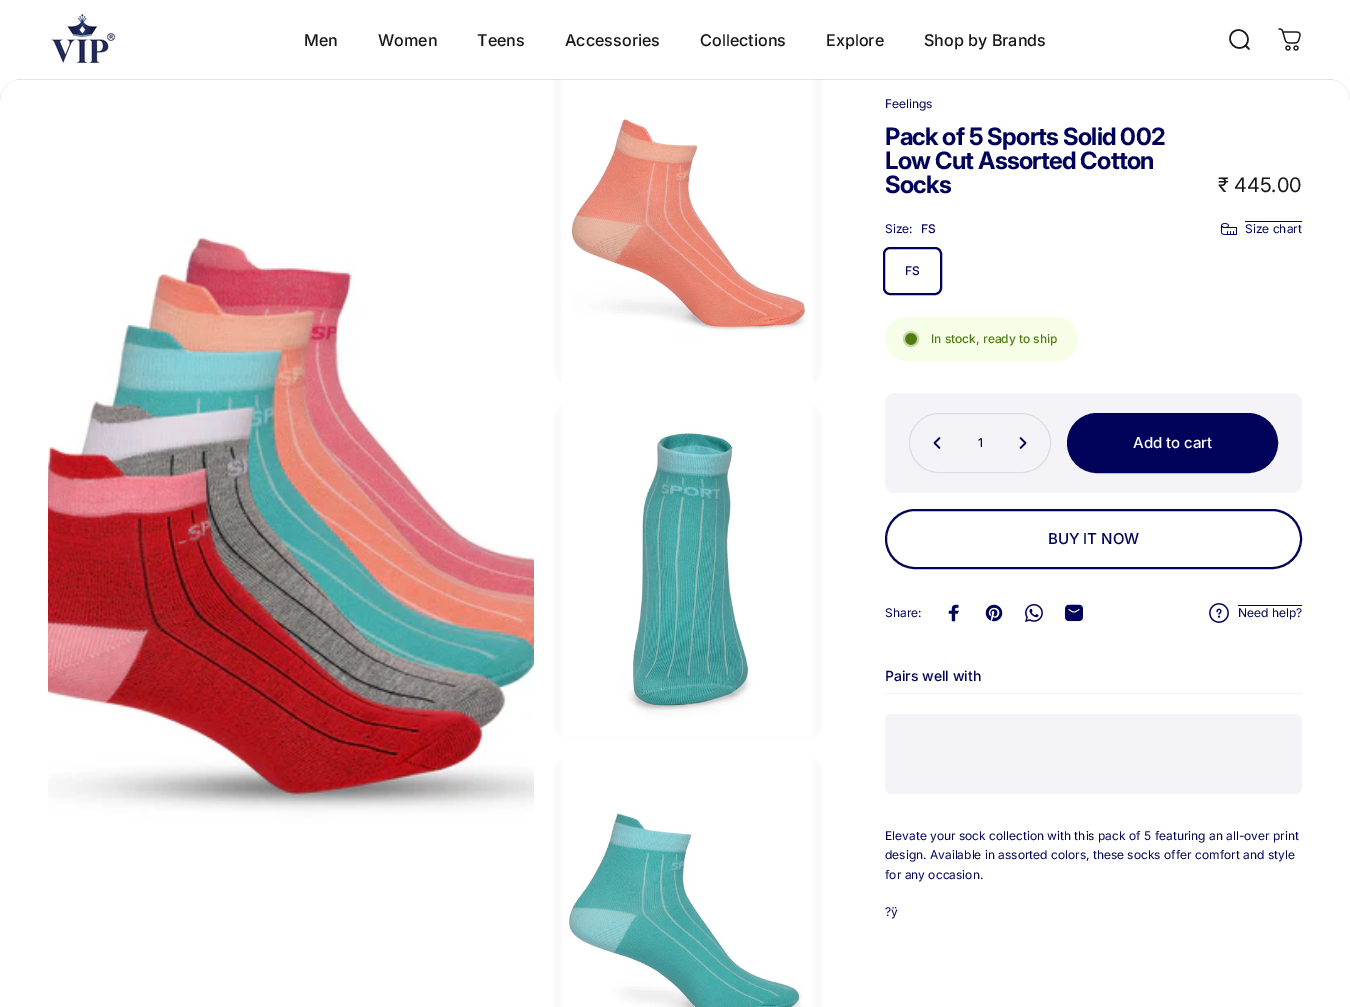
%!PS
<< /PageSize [1350 1007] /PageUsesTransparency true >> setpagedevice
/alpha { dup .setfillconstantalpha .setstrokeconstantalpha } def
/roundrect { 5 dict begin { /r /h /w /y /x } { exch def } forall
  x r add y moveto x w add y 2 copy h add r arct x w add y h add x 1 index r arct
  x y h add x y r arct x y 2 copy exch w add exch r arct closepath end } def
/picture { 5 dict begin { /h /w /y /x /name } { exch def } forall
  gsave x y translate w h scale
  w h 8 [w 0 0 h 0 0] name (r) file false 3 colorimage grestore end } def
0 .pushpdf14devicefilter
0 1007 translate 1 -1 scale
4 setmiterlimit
1 setgray
0 0 1350 1007 rectfill
(img1.rgb) 49 13 67 52 picture
/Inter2-Medium [16.25 0 0 -16.25 0 0] selectfont
0.09 setgray
304 46 moveto (Men) show
378 46 moveto (Women) show
477 46 moveto (Teens) show
565 46 moveto (Accessories) show
700 46 moveto (Collections) show
826 46 moveto (Explore) show
924 46 moveto (Shop by Brands) show
1.5 setlinewidth
1 setlinecap
newpath 1249 49 moveto 1245.5 45.5 lineto 1245.5 45.5 moveto 1253.5 37 1241 24.5 1232.5 32.5 curveto 1224.5 41 1237 53.5 1245.5 45.5 curveto closepath stroke
(img2.rgb) 1278 28 23 23 picture
0.98 setgray
554 50 268 334 14 roundrect fill
1 setgray
554 50 268 29 rectfill
(img6.rgb) 562 79 251 305 picture
0.11 alpha
0.09 setgray
15 79 1335 1 rectfill
1 alpha
(img3.rgb) 0 79 21 21 picture
(img4.rgb) 1329 79 21 21 picture
0.98 setgray
48 94 486 868 14 roundrect fill
(img5.rgb) 48 94 486 868 picture
554 404 268 334 14 roundrect fill
(img7.rgb) 562 404 251 333 picture
554 758 268 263 14 roundrect fill
(img8.rgb) 562 758 251 249 picture
/Inter-Regular [12 0 0 -12 0 0] selectfont
0 0.012 0.349 setrgbcolor
885 108 moveto (Feelings) show
/Inter-Bold [23.9 0 0 -23.9 0 0] selectfont
885 145 moveto -0.75 0 (Pack of 5 Sports Solid 002) ashow
885 169 moveto -0.75 0 (Low Cut Assorted Cotton) ashow
885 193 moveto -0.75 0 (Socks) ashow
/Inter2-Regular [20 0 0 -20 0 0] selectfont
0.09 setgray
1218 192 moveto (₹ 445.00) show
/Inter-Regular [12 0 0 -12 0 0] selectfont
0 0.012 0.349 setrgbcolor
885 233 moveto (Size:) show
/Inter-Medium [12 0 0 -12 0 0] selectfont
921 233 moveto (FS) show
(img9.rgb) 1221 223 16 12 picture
1245 221 57 1 rectfill
/Inter-Regular [12 0 0 -12 0 0] selectfont
1245 233 moveto (Size chart) show
2 setlinewidth
0 setlinecap
884 248 57 46 6 roundrect stroke
/Inter-Medium [12 0 0 -12 0 0] selectfont
905 275 moveto (FS) show
0.969 0.996 0.906 setrgbcolor
885 317 193 44 22 roundrect fill
0.302 0.486 0.059 setrgbcolor
newpath 911 339 5 0 360 arc closepath gsave fill grestore
1.5 setlinewidth
stroke
0.3 alpha
3 setlinewidth
newpath 911 339 6.5 0 360 arc closepath stroke
1 alpha
931 343 moveto (In stock, ready to ship) show
0.957 0.957 0.973 setrgbcolor
885 393 417 100 10 roundrect fill
0.863 0.863 0.91 setrgbcolor
1 setlinewidth
909.5 413.5 141 59 29.5 roundrect stroke
0 0.012 0.349 setrgbcolor
1.7 setlinewidth
1 setlinecap
1 setlinejoin
newpath 939.5 438 moveto 934.5 443 lineto 939.5 448 lineto stroke
978 447 moveto (1) show
newpath 1020.5 438 moveto 1025.5 443 lineto 1020.5 448 lineto stroke
1068 414 209 58 29 roundrect gsave fill grestore
2 setlinewidth
0 setlinecap
0 setlinejoin
stroke
/Inter-Medium [15 0 0 -15 0 0] selectfont
1 setgray
1133 448 moveto (Add to cart) show
0 0.012 0.349 setrgbcolor
886 510 415 58 29 roundrect stroke
1048 544 moveto (BUY IT NOW) show
/Inter-Regular [12 0 0 -12 0 0] selectfont
885 617 moveto (Share:) show
(img10.rgb) 948 604 11 18 picture
(img11.rgb) 985 604 18 18 picture
(img12.rgb) 1025 604 18 18 picture
(img13.rgb) 1065 604 18 18 picture
(img14.rgb) 1209 603 20 20 picture
1238 605 64 1 rectfill
1238 617 moveto (Need help?) show
0.941 0.941 0.961 setrgbcolor
885 693 417 1 rectfill
/Inter-Medium [14 0 0 -14 0 0] selectfont
0 0.012 0.349 setrgbcolor
885 681 moveto (Pairs well with) show
gsave 885 714 417 80 8 roundrect clip newpath
<< /ShadingType 2 /ColorSpace /DeviceRGB /Coords [903 610 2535 898] /Extend [true true] /Function << /FunctionType 3 /Domain [0 1] /Functions [<< /FunctionType 2 /Domain [0 1] /C0 [0.957 0.957 0.973] /C1 [0.957 0.957 0.973] /N 1 >> << /FunctionType 2 /Domain [0 1] /C0 [0.957 0.957 0.973] /C1 [0.886 0.886 0.925] /N 1 >> << /FunctionType 2 /Domain [0 1] /C0 [0.886 0.886 0.925] /C1 [0.957 0.957 0.973] /N 1 >> << /FunctionType 2 /Domain [0 1] /C0 [0.957 0.957 0.973] /C1 [0.957 0.957 0.973] /N 1 >>] /Bounds [0.4 0.63 0.79] /Encode [0 1 0 1 0 1 0 1] >> >> shfill grestore
/Inter-Regular [12 0 0 -12 0 0] selectfont
885 840 moveto (Elevate your sock collection with this pack of 5 featuring an all-over print) show
885 859 moveto (design. Available in assorted colors, these socks offer comfort and style) show
885 879 moveto (for any occasion.) show
885 916 moveto (?ÿ) show
.poppdf14devicefilter showpage
